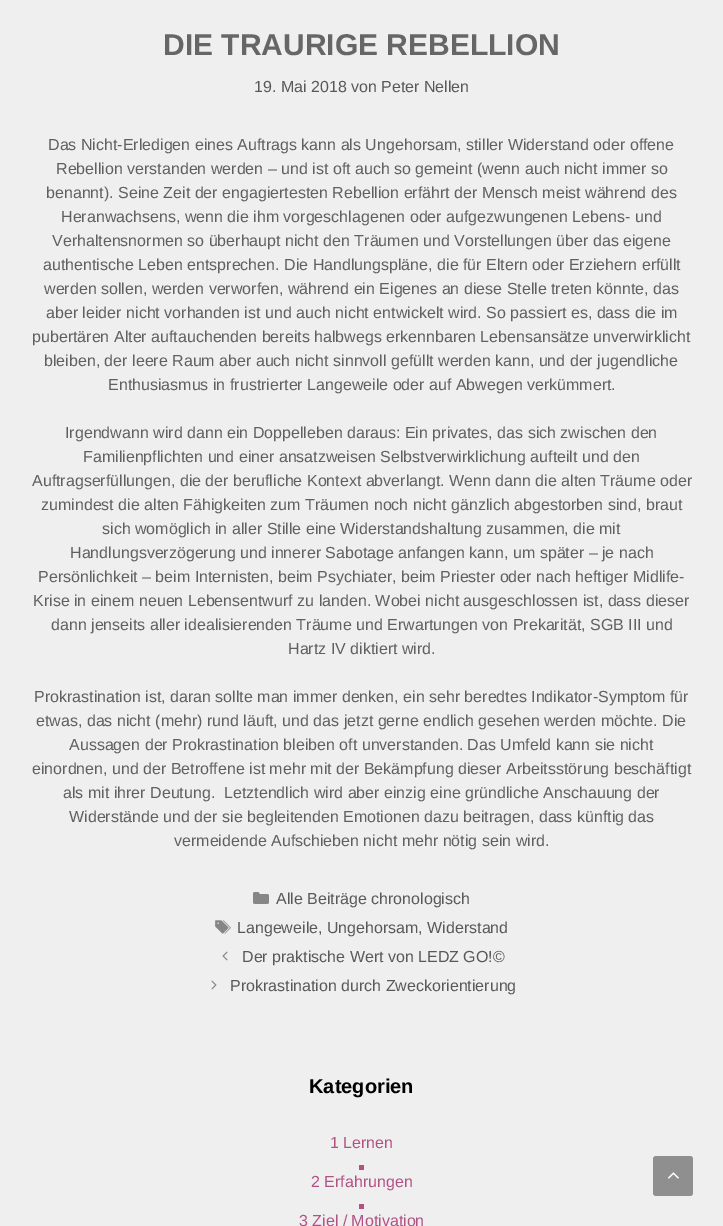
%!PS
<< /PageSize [723 1226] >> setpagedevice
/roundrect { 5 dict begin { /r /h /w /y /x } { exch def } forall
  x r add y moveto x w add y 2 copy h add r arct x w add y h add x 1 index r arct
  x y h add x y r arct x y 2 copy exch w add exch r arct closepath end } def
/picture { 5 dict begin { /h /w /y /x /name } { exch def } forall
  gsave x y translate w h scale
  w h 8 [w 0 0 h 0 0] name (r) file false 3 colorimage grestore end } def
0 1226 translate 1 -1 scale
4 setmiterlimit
0.937 setgray
0 0 723 1226 rectfill
/LiberationSans-Bold [30 0 0 -30 0 0] selectfont
0.4 setgray
163 55 moveto (DIE TRAURIGE REBELLION) show
/LiberationSans-Regular [16 0 0 -16 0 0] selectfont
0.349 setgray
254 92 moveto (19. Mai 2018 von Peter Nellen) show
0.376 setgray
48 150 moveto (Das Nicht-Erledigen eines Auftrags kann als Ungehorsam, stiller Widerstand oder offene) show
56 174 moveto (Rebellion verstanden werden – und ist oft auch so gemeint \(wenn auch nicht immer so) show
46 198 moveto (benannt\). Seine Zeit der engagiertesten Rebellion erfährt der Mensch meist während des) show
61 222 moveto (Heranwachsens, wenn die ihm vorgeschlagenen oder aufgezwungenen Lebens- und) show
52 246 moveto (Verhaltensnormen so überhaupt nicht den Träumen und Vorstellungen über das eigene) show
43 270 moveto (authentische Leben entsprechen. Die Handlungspläne, die für Eltern oder Erziehern erfüllt) show
44 294 moveto (werden sollen, werden verworfen, während ein Eigenes an diese Stelle treten könnte, das) show
46 318 moveto (aber leider nicht vorhanden ist und auch nicht entwickelt wird. So passiert es, dass die im) show
32 342 moveto (pubertären Alter auftauchenden bereits halbwegs erkennbaren Lebensansätze unverwirklicht) show
44 366 moveto (bleiben, der leere Raum aber auch nicht sinnvoll gefüllt werden kann, und der jugendliche) show
108 390 moveto (Enthusiasmus in frustrierter Langeweile oder auf Abwegen verkümmert.) show
65 438 moveto (Irgendwann wird dann ein Doppelleben daraus: Ein privates, das sich zwischen den) show
83 462 moveto (Familienpflichten und einer ansatzweisen Selbstverwirklichung aufteilt und den) show
32 486 moveto (Auftragserfüllungen, die der berufliche Kontext abverlangt. Wenn dann die alten Träume oder) show
41 510 moveto (zumindest die alten Fähigkeiten zum Träumen noch nicht gänzlich abgestorben sind, braut) show
102 534 moveto (sich womöglich in aller Stille eine Widerstandshaltung zusammen, die mit) show
70 558 moveto (Handlungsverzögerung und innerer Sabotage anfangen kann, um später – je nach) show
38 582 moveto (Persönlichkeit – beim Internisten, beim Psychiater, beim Priester oder nach heftiger Midlife-) show
33 606 moveto (Krise in einem neuen Lebensentwurf zu landen. Wobei nicht ausgeschlossen ist, dass dieser) show
51 630 moveto (dann jenseits aller idealisierenden Träume und Erwartungen von Prekarität, SGB III und) show
288 654 moveto (Hartz IV diktiert wird.) show
34 702 moveto (Prokrastination ist, daran sollte man immer denken, ein sehr beredtes Indikator-Symptom für) show
36 726 moveto (etwas, das nicht \(mehr\) rund läuft, und das jetzt gerne endlich gesehen werden möchte. Die) show
69 750 moveto (Aussagen der Prokrastination bleiben oft unverstanden. Das Umfeld kann sie nicht) show
32 774 moveto (einordnen, und der Betroffene ist mehr mit der Bekämpfung dieser Arbeitsstörung beschäftigt) show
63 798 moveto (als mit ihrer Deutung.  Letztendlich wird aber einzig eine gründliche Anschauung der) show
69 822 moveto (Widerstände und der sie begleitenden Emotionen dazu beitragen, dass künftig das) show
174 846 moveto (vermeidende Aufschieben nicht mehr nötig sein wird.) show
(img1.rgb) 253 892 16 12 picture
0.349 setgray
276 904 moveto (Alle Beiträge chronologisch) show
(img2.rgb) 215 920 16 14 picture
237 933 moveto (Langeweile, Ungehorsam, Widerstand) show
(img3.rgb) 222 951 6 10 picture
242 962 moveto (Der praktische Wert von LEDZ GO!©) show
(img4.rgb) 211 980 6 10 picture
230 991 moveto (Prokrastination durch Zweckorientierung) show
/LiberationSans-Bold [20 0 0 -20 0 0] selectfont
0 setgray
309 1093 moveto (Kategorien) show
0.698 0.322 0.518 setrgbcolor
359 1165 5 5 rectfill
/LiberationSans-Regular [16 0 0 -16 0 0] selectfont
330 1148 moveto (1 Lernen) show
359 1204 5 5 rectfill
311 1187 moveto (2 Erfahrungen) show
299 1226 moveto (3 Ziel / Motivation) show
0.561 setgray
653 1156 40 40 3 roundrect fill
(img5.rgb) 668 1172 11 7 picture
showpage
